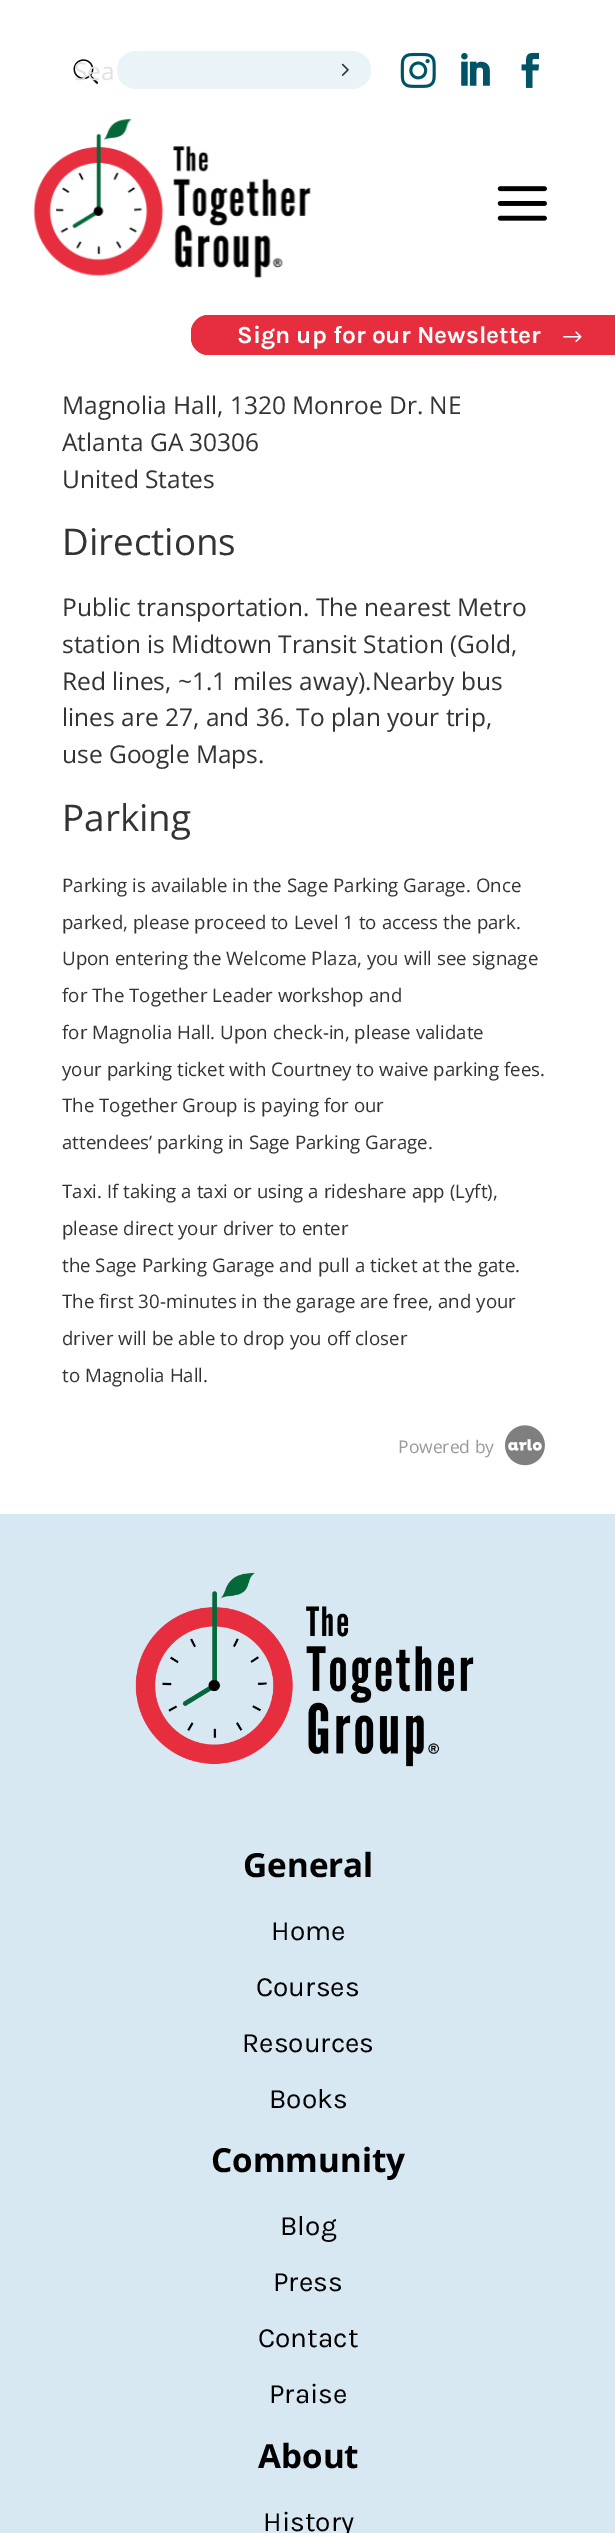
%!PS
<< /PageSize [615 2533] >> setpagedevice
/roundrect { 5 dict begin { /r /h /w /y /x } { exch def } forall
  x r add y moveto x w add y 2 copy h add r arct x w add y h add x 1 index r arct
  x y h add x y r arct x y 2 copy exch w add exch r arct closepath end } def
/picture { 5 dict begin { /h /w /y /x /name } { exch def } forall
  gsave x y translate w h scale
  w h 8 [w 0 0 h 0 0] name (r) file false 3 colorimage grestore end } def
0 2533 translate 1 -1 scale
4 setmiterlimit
1 setgray
0 0 615 2533 rectfill
(img1.rgb) 73 59 26 25 picture
/OpenSans-Regular [24.5 0 0 -24.5 0 0] selectfont
0.882 setgray
74 80 moveto (Sea) show
0.918 0.953 0.973 setrgbcolor
117 51 254 38 19 roundrect fill
(img2.rgb) 341 63 8 13 picture
(img3.rgb) 400 52 36 36 picture
(img4.rgb) 461 53 29 33 picture
(img5.rgb) 521 52 19 36 picture
(img6.rgb) 33 118 278 160 picture
(img7.rgb) 497 186 50 35 picture
0.906 0.18 0.247 setrgbcolor
newpath 209 315 moveto 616 315 lineto 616 355 lineto 209 355 lineto 199 355 191 347 191 337 curveto 191 333 lineto 191 323 199 315 209 315 curveto closepath fill
newpath 208 315 moveto 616 315 lineto 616 355 lineto 208 355 lineto 199 355 191 347 191 338 curveto 191 332 lineto 191 323 199 315 208 315 curveto closepath 208 317 moveto 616 317 lineto 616 354 lineto 208 354 lineto 200 354 192 346 192 338 curveto 192 332 lineto 192 324 200 317 208 317 curveto closepath eofill
/Karla-Bold [24.5 0 0 -24.5 0 0] selectfont
1 setgray
237 343 moveto (Sign up for our Newsletter) show
(img8.rgb) 563 331 19 12 picture
/OpenSans-Regular [24.5 0 0 -24.5 0 0] selectfont
0.2 setgray
62 414 moveto (Magnolia Hall, 1320 Monroe Dr. NE) show
62 451 moveto (Atlanta GA 30306) show
62 488 moveto (United States) show
/OpenSans-Regular [36.75 0 0 -36.75 0 0] selectfont
62 555 moveto (Directions) show
/OpenSans-Regular [24.5 0 0 -24.5 0 0] selectfont
62 616 moveto (Public transportation. The nearest Metro) show
62 653 moveto (station is Midtown Transit Station \(Gold,) show
62 690 moveto (Red lines, ~1.1 miles away\).Nearby bus) show
62 726 moveto (lines are 27, and 36. To plan your trip,) show
62 763 moveto (use Google Maps.) show
/OpenSans-Regular [36.75 0 0 -36.75 0 0] selectfont
62 831 moveto (Parking) show
/OpenSans-Regular [18.7 0 0 -18.7 0 0] selectfont
62 892 moveto (Parking is available in the Sage Parking Garage. Once) show
62 929 moveto (parked, please proceed to Level 1 to access the park.) show
62 965 moveto (Upon entering the Welcome Plaza, you will see signage) show
62 1002 moveto (for The Together Leader workshop and) show
62 1039 moveto (for Magnolia Hall. Upon check-in, please validate) show
62 1076 moveto (your parking ticket with Courtney to waive parking fees.) show
62 1112 moveto (The Together Group is paying for our) show
62 1149 moveto (attendees’ parking in Sage Parking Garage.) show
62 1198 moveto (Taxi. If taking a taxi or using a rideshare app \(Lyft\),) show
62 1235 moveto (please direct your driver to enter) show
62 1272 moveto (the Sage Parking Garage and pull a ticket at the gate.) show
62 1308 moveto (The first 30-minutes in the garage are free, and your) show
62 1345 moveto (driver will be able to drop you off closer) show
62 1382 moveto (to Magnolia Hall.) show
/OpenSans-Regular [17.5 0 0 -17.5 0 0] selectfont
0.6 setgray
398 1453 moveto (Powered by) show
(img9.rgb) 505 1425 40 41 picture
0.843 0.91 0.949 setrgbcolor
0 1514 615 1019 rectfill
(img10.rgb) 135 1572 339 195 picture
/OpenSans-Bold [33.25 0 0 -33.25 0 0] selectfont
0 setgray
243 1877 moveto (General) show
/Karla-Regular [28 0 0 -28 0 0] selectfont
271 1940 moveto (Home) show
256 1996 moveto (Courses) show
242 2052 moveto (Resources) show
269 2108 moveto (Books) show
/OpenSans-Bold [33.25 0 0 -33.25 0 0] selectfont
211 2172 moveto (Community) show
/Karla-Regular [28 0 0 -28 0 0] selectfont
280 2235 moveto (Blog) show
273 2291 moveto (Press) show
258 2347 moveto (Contact) show
269 2403 moveto (Praise) show
/OpenSans-Bold [33.25 0 0 -33.25 0 0] selectfont
258 2468 moveto (About) show
/Karla-Regular [28 0 0 -28 0 0] selectfont
263 2531 moveto (History) show
showpage
